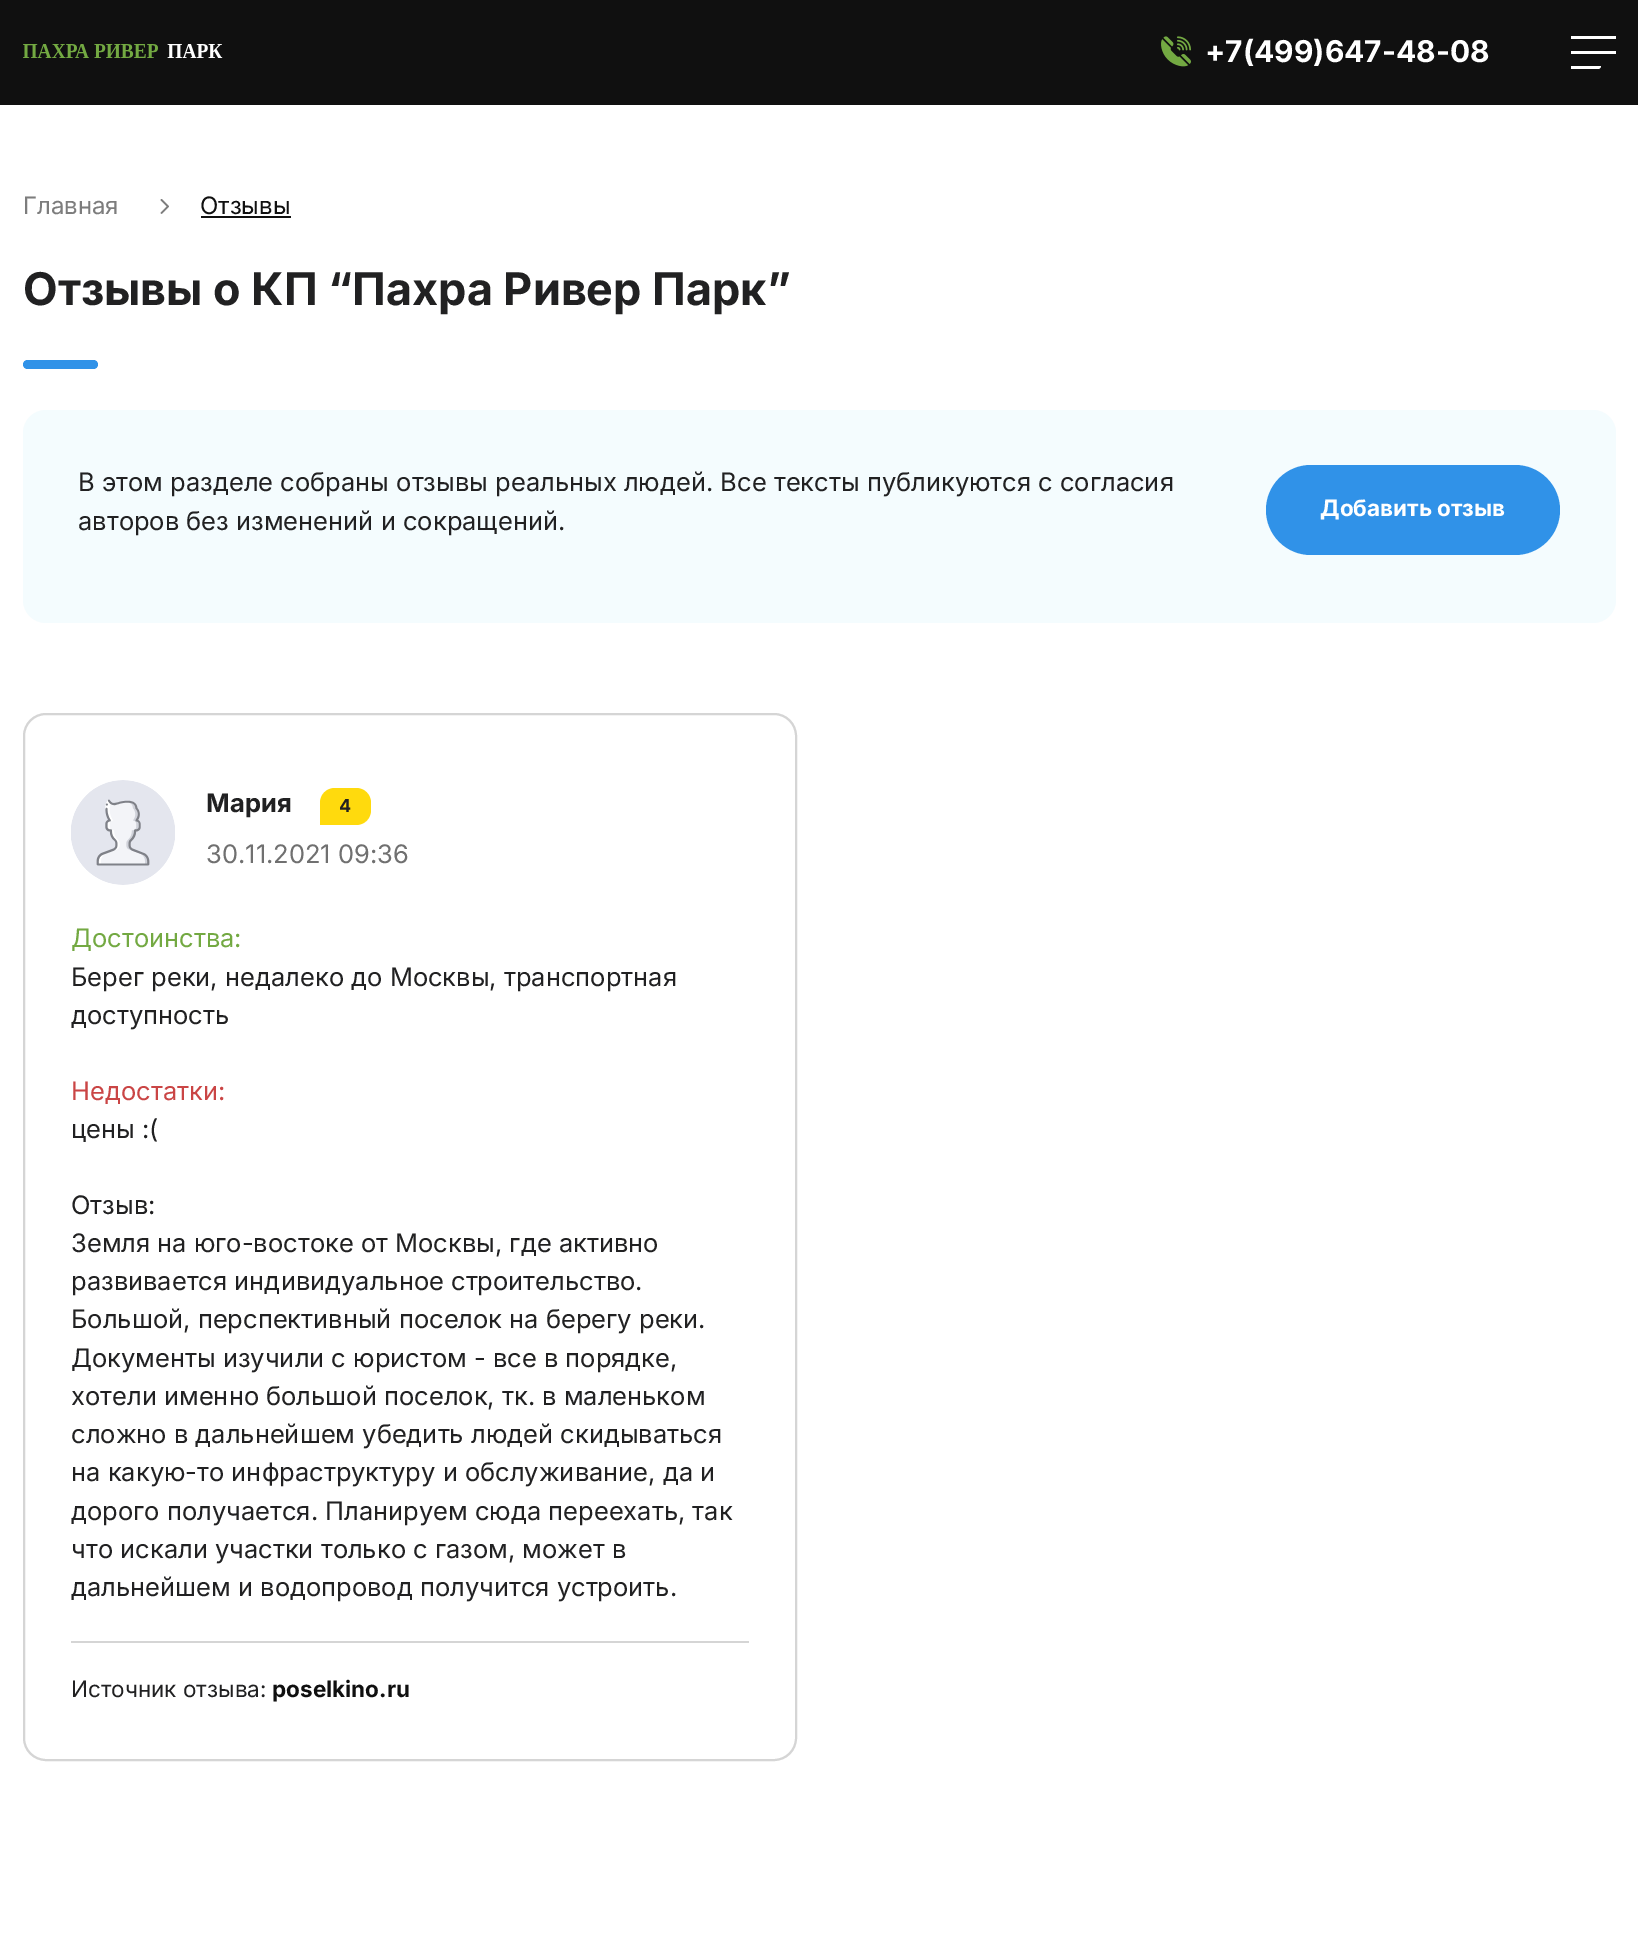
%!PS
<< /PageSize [1638 1958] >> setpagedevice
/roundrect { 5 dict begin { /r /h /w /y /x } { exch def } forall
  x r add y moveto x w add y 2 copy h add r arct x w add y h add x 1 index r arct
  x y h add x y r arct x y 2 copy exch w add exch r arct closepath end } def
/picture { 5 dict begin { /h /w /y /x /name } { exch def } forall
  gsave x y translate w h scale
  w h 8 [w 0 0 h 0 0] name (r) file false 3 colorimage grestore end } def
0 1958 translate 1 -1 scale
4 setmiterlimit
1 setgray
0 0 1638 1958 rectfill
0.063 setgray
0 0 1638 105 rectfill
(img1.rgb) 23 44 200 14 picture
(img2.rgb) 1161 36 30 31 picture
/Inter-Bold [30 0 0 -30 0 0] selectfont
1 setgray
1205 62 moveto (+7\(499\)647-48-08) show
1571 36 45 3 rectfill
1571 51 45 3 rectfill
newpath 1571 66 moveto 1601 66 lineto 1601 67.5 1599.5 69 1598 69 curveto 1571 69 lineto closepath fill
/Inter-Regular [24 0 0 -24 0 0] selectfont
0.49 setgray
23 214 moveto (Главная) show
(img3.rgb) 160 199 9 15 picture
0.063 setgray
200 214 moveto (Отзывы) show
201 216 90 2 rectfill
/Inter-Bold [45 0 0 -45 0 0] selectfont
0.129 0.129 0.133 setrgbcolor
23 305 moveto (Отзывы о КП “Пахра Ривер Парк”) show
0.188 0.573 0.91 setrgbcolor
23 360 75 9 4.5 roundrect fill
0.957 0.988 0.996 setrgbcolor
23 410 1593 213 23 roundrect fill
/Inter-Regular [25.5 0 0 -25.5 0 0] selectfont
0.129 0.129 0.133 setrgbcolor
78 491 moveto (В этом разделе собраны отзывы реальных людей. Все тексты публикуются с согласия) show
78 530 moveto (авторов без изменений и сокращений.) show
0.188 0.573 0.91 setrgbcolor
1266 465 294 90 45 roundrect fill
/Inter-Bold [22.5 0 0 -22.5 0 0] selectfont
1 setgray
1320 516 moveto (Добавить отзыв) show
0.835 setgray
2 setlinewidth
24 714 772 1046 22 roundrect stroke
(img4.rgb) 71 780 104 105 picture
/Inter-Bold [25.5 0 0 -25.5 0 0] selectfont
0.129 0.129 0.133 setrgbcolor
206 812 moveto (Мария) show
1 0.855 0.051 setrgbcolor
newpath 335 788 moveto 356 788 lineto 364.5 788 371 794.5 371 803 curveto 371 810 lineto 371 818.5 364.5 825 356 825 curveto 320 825 lineto 320 803 lineto 320 794.5 326.5 788 335 788 curveto closepath fill
/Inter-Bold [18 0 0 -18 0 0] selectfont
0.129 0.129 0.133 setrgbcolor
339 812 moveto (4) show
/Inter-Regular [25.5 0 0 -25.5 0 0] selectfont
0.439 setgray
206 863 moveto (30.11.2021 09:36) show
0.835 setgray
71 1641 678 2 rectfill
0.451 0.663 0.259 setrgbcolor
71 947 moveto (Достоинства:) show
0.129 0.129 0.133 setrgbcolor
71 986 moveto (Берег реки, недалеко до Москвы, транспортная) show
71 1024 moveto (доступность) show
0.792 0.271 0.271 setrgbcolor
71 1100 moveto (Недостатки:) show
0.129 0.129 0.133 setrgbcolor
71 1138 moveto (цены :\() show
71 1214 moveto (Отзыв:) show
71 1252 moveto (Земля на юго-востоке от Москвы, где активно) show
71 1290 moveto (развивается индивидуальное строительство.) show
71 1328 moveto (Большой, перспективный поселок на берегу реки.) show
71 1367 moveto (Документы изучили с юристом - все в порядке,) show
71 1405 moveto (хотели именно большой поселок, тк. в маленьком) show
71 1443 moveto (сложно в дальнейшем убедить людей скидываться) show
71 1481 moveto (на какую-то инфраструктуру и обслуживание, да и) show
71 1520 moveto (дорого получается. Планируем сюда переехать, так) show
71 1558 moveto (что искали участки только с газом, может в) show
71 1596 moveto (дальнейшем и водопровод получится устроить.) show
/Inter-Regular [22.5 0 0 -22.5 0 0] selectfont
71 1697 moveto (Источник отзыва:) show
/Inter-Bold [22.5 0 0 -22.5 0 0] selectfont
0.063 setgray
272 1697 moveto (poselkino.ru) show
showpage
